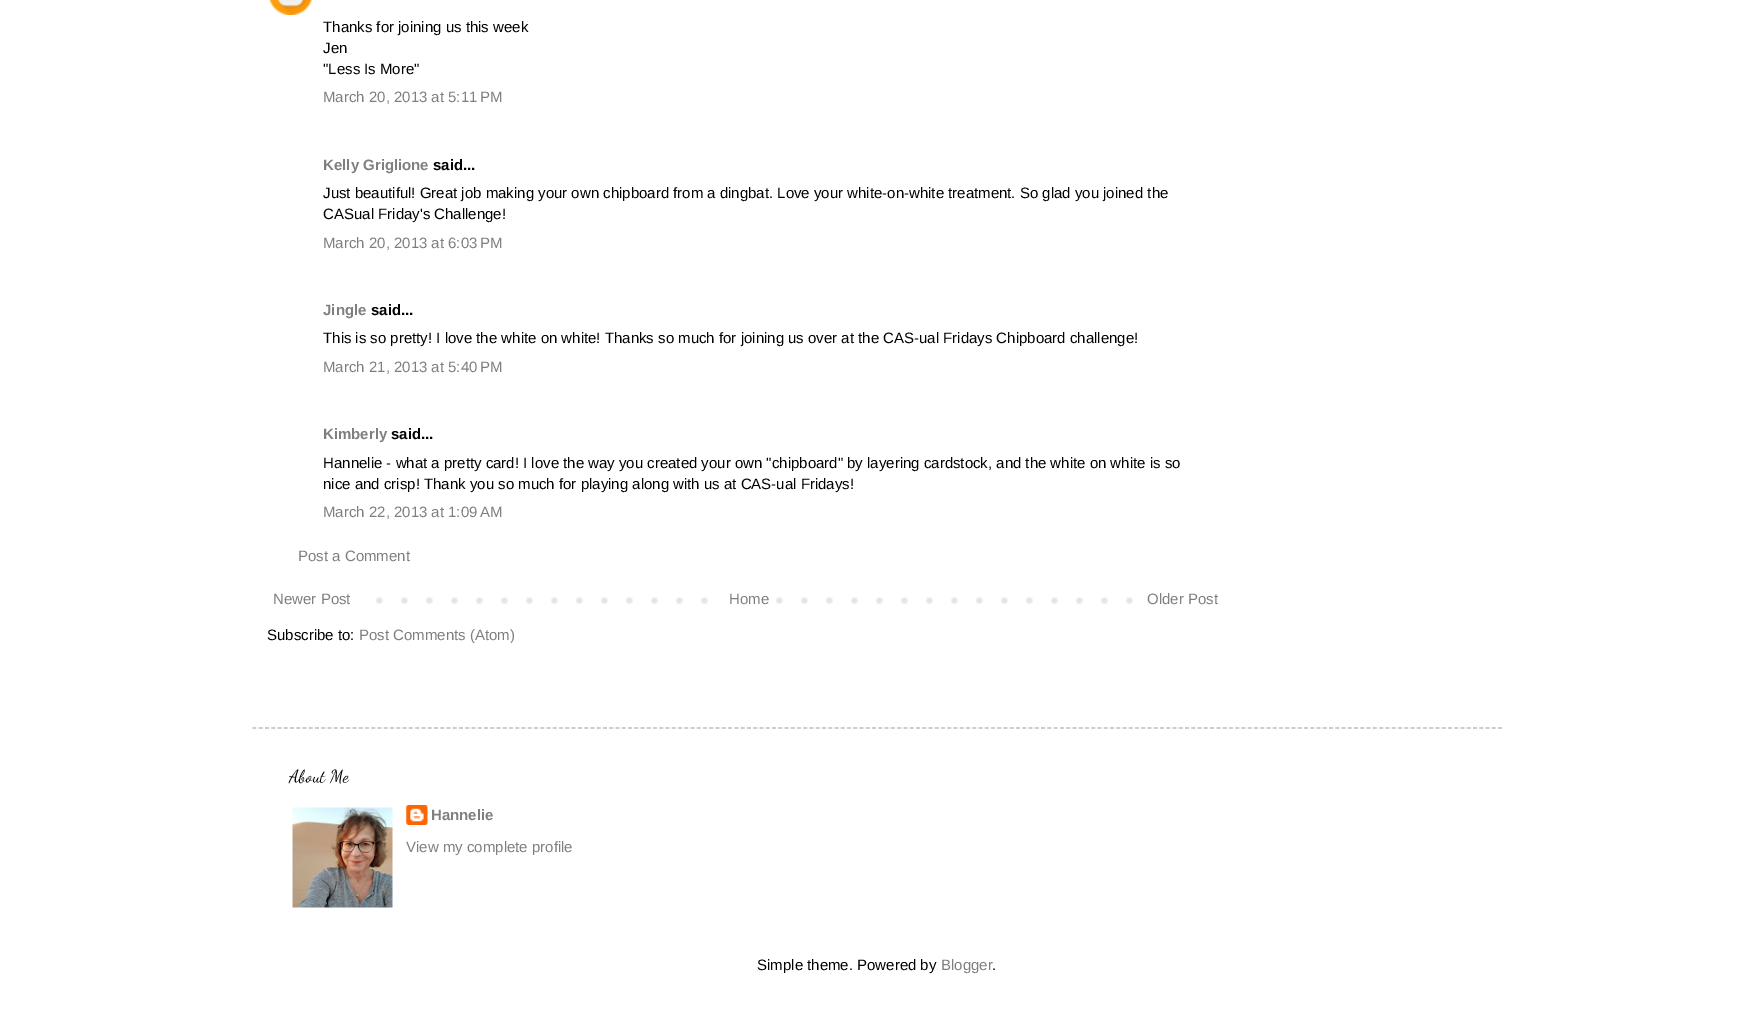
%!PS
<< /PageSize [1753 1025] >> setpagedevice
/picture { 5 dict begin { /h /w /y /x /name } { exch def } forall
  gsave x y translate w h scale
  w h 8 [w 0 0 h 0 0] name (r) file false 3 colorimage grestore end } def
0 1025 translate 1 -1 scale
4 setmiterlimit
1 setgray
0 0 1753 1025 rectfill
(img1.rgb) 268 0 45 15 picture
/LiberationSans-Regular [15 0 0 -15 0 0] selectfont
0 setgray
323 32 moveto (Thanks for joining us this week) show
323 53 moveto (Jen) show
323 74 moveto ("Less Is More") show
0.498 setgray
323 102 moveto (March 20, 2013 at 5:11 PM) show
/LiberationSans-Bold [15 0 0 -15 0 0] selectfont
323 170 moveto (Kelly Griglione) show
0 setgray
433 170 moveto (said...) show
/LiberationSans-Regular [15 0 0 -15 0 0] selectfont
323 198 moveto (Just beautiful! Great job making your own chipboard from a dingbat. Love your white-on-white treatment. So glad you joined the) show
323 219 moveto (CASual Friday's Challenge!) show
0.498 setgray
323 248 moveto (March 20, 2013 at 6:03 PM) show
/LiberationSans-Bold [15 0 0 -15 0 0] selectfont
323 315 moveto (Jingle) show
0 setgray
371 315 moveto (said...) show
/LiberationSans-Regular [15 0 0 -15 0 0] selectfont
323 343 moveto (This is so pretty! I love the white on white! Thanks so much for joining us over at the CAS-ual Fridays Chipboard challenge!) show
0.498 setgray
323 372 moveto (March 21, 2013 at 5:40 PM) show
/LiberationSans-Bold [15 0 0 -15 0 0] selectfont
323 439 moveto (Kimberly) show
0 setgray
391 439 moveto (said...) show
/LiberationSans-Regular [15 0 0 -15 0 0] selectfont
323 468 moveto (Hannelie - what a pretty card! I love the way you created your own "chipboard" by layering cardstock, and the white on white is so) show
323 489 moveto (nice and crisp! Thank you so much for playing along with us at CAS-ual Fridays!) show
0.498 setgray
323 517 moveto (March 22, 2013 at 1:09 AM) show
298 561 moveto (Post a Comment) show
(img2.rgb) 376 597 757 7 picture
273 604 moveto (Newer Post) show
1 setgray
726 597 33 7 rectfill
0.498 setgray
729 604 moveto (Home) show
1147 604 moveto (Older Post) show
0 setgray
267 640 moveto (Subscribe to:) show
0.498 setgray
359 640 moveto (Post Comments \(Atom\)) show
0.733 setgray
1.2 setlinewidth
[3.75 2.51] 0 setdash
newpath 252.5 728 moveto 1502.5 728 lineto stroke
/DancingScript-Regular [17.5 0 0 -17.5 0 0] selectfont
0 setgray
289 782 moveto (About Me) show
(img3.rgb) 292 807 101 101 picture
(img4.rgb) 406 805 22 20 picture
/LiberationSans-Bold [15 0 0 -15 0 0] selectfont
0.498 setgray
431 820 moveto (Hannelie) show
/LiberationSans-Regular [15 0 0 -15 0 0] selectfont
406 852 moveto (View my complete profile) show
0 setgray
757 970 moveto (Simple theme. Powered by) show
0.498 setgray
941 970 moveto (Blogger) show
0 setgray
992 970 moveto (.) show
showpage
